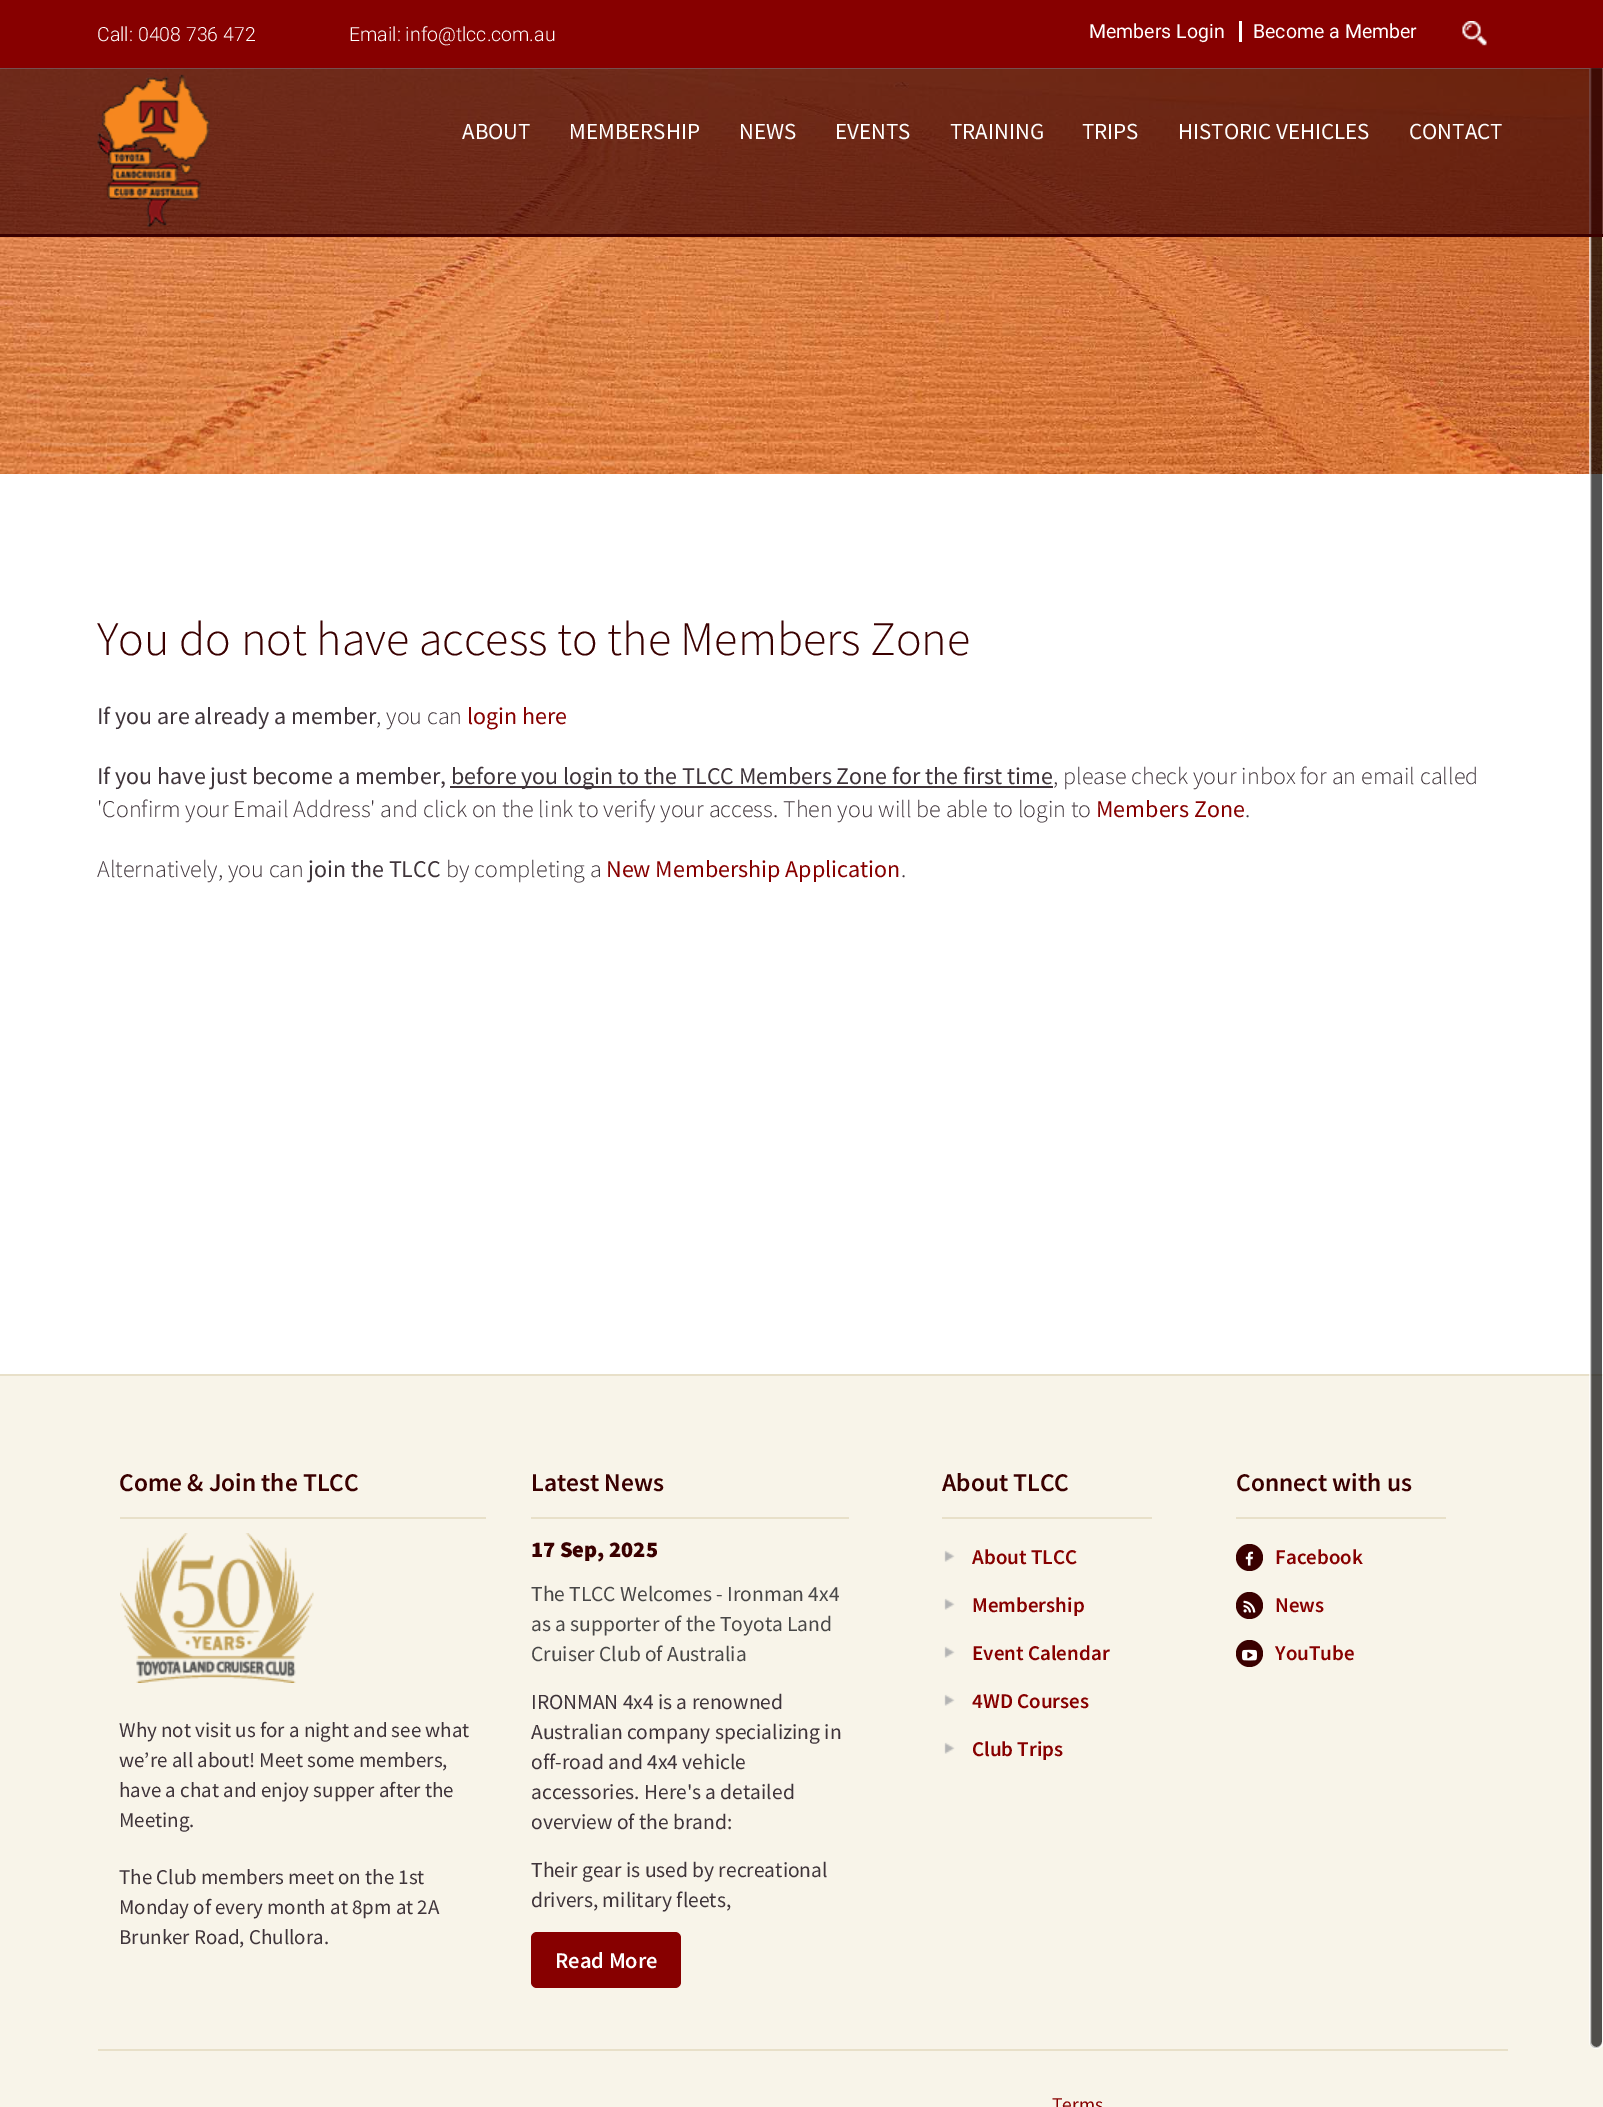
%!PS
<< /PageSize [1603 2107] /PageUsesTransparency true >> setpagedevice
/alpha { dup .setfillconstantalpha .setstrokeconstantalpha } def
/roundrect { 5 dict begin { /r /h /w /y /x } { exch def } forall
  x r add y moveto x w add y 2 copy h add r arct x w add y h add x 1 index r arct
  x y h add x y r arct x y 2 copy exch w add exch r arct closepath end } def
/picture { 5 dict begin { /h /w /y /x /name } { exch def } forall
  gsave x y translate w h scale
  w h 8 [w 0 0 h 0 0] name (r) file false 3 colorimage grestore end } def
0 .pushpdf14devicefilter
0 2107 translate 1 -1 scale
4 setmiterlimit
1 setgray
0 0 1603 2107 rectfill
(img3.rgb) 0 69 1603 405 picture
0.973 0.957 0.914 setrgbcolor
0 1376 1603 731 rectfill
0.91 0.878 0.788 setrgbcolor
0 1374 1603 2 rectfill
0.68 alpha
0 setgray
1590 2 12 2046 6 roundrect fill
1 setgray
2 setlinewidth
1590 1 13 2047 6.5 roundrect stroke
1 alpha
0.529 0 0 setrgbcolor
0 0 1603 68 rectfill
/Roboto-Light [19.5 0 0 -19.5 0 0] selectfont
1 setgray
97 41 moveto (Call: 0408 736 472) show
349 41 moveto (Email: info@tlcc.com.au) show
/Roboto-Regular [19.5 0 0 -19.5 0 0] selectfont
1089 38 moveto (Members Login) show
1239 21 3 21 rectfill
1253 38 moveto (Become a Member) show
(img1.rgb) 1462 21 25 25 picture
0.69 alpha
0.227 0 0 setrgbcolor
0 68 1603 166 rectfill
1 alpha
0 234 1603 3 rectfill
(img2.rgb) 97 74 113 153 picture
/SourceSansPro-Regular [23 0 0 -23 0 0] selectfont
1 setgray
462 139 moveto (ABOUT) show
569 139 moveto (MEMBERSHIP) show
739 139 moveto (NEWS) show
835 139 moveto (EVENTS) show
950 139 moveto (TRAINING) show
1082 139 moveto (TRIPS) show
1178 139 moveto (HISTORIC VEHICLES) show
1409 139 moveto (CONTACT) show
/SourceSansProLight-Light [48 0 0 -48 0 0] selectfont
0.227 0 0 setrgbcolor
97 655 moveto (You do not have access to the Members Zone) show
/SourceSansPro-Regular [24 0 0 -24 0 0] selectfont
0.247 0.204 0.227 setrgbcolor
97 724 moveto (If you are already a member) show
/SourceSansProLight-Light [24 0 0 -24 0 0] selectfont
376 724 moveto (, you can) show
/SourceSansPro-Regular [24 0 0 -24 0 0] selectfont
0.529 0 0 setrgbcolor
467 724 moveto (login here) show
0.247 0.204 0.227 setrgbcolor
97 784 moveto (If you have just become a member,) show
450 786 603 2 rectfill
451 784 moveto (before you login to the TLCC Members Zone for the first time) show
/SourceSansProLight-Light [24 0 0 -24 0 0] selectfont
1053 784 moveto (, please check your inbox for an email called) show
97 817 moveto ('Confirm your Email Address' and click on the link to verify your access. Then you will be able to login to) show
/SourceSansPro-Regular [24 0 0 -24 0 0] selectfont
0.529 0 0 setrgbcolor
1096 817 moveto (Members Zone) show
/SourceSansProLight-Light [24 0 0 -24 0 0] selectfont
0.247 0.204 0.227 setrgbcolor
1245 817 moveto (.) show
97 877 moveto (Alternatively, you can) show
/SourceSansPro-Regular [24 0 0 -24 0 0] selectfont
308 877 moveto (join the TLCC) show
/SourceSansProLight-Light [24 0 0 -24 0 0] selectfont
446 877 moveto (by completing a) show
/SourceSansPro-Regular [24 0 0 -24 0 0] selectfont
0.529 0 0 setrgbcolor
606 877 moveto (New Membership Application) show
/SourceSansProLight-Light [24 0 0 -24 0 0] selectfont
0.247 0.204 0.227 setrgbcolor
901 877 moveto (.) show
0.91 0.878 0.788 setrgbcolor
120 1517 366 2 rectfill
/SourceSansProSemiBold-SemiBold [25.5 0 0 -25.5 0 0] selectfont
0.227 0 0 setrgbcolor
119 1491 moveto (Come & Join the TLCC) show
(img4.rgb) 120 1533 194 150 picture
/SourceSansPro-Regular [21 0 0 -21 0 0] selectfont
0.247 0.204 0.227 setrgbcolor
119 1737 moveto (Why not visit us for a night and see what) show
119 1767 moveto (we’re all about! Meet some members,) show
119 1797 moveto (have a chat and enjoy supper after the) show
119 1827 moveto (Meeting.) show
119 1884 moveto (The Club members meet on the 1st) show
119 1914 moveto (Monday of every month at 8pm at 2A) show
119 1944 moveto (Brunker Road, Chullora.) show
0.91 0.878 0.788 setrgbcolor
531 1517 318 2 rectfill
/SourceSansProSemiBold-SemiBold [25.5 0 0 -25.5 0 0] selectfont
0.227 0 0 setrgbcolor
531 1491 moveto (Latest News) show
/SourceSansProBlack-Black [22.5 0 0 -22.5 0 0] selectfont
531 1557 moveto (17 Sep, 2025) show
/SourceSansPro-Regular [21.5 0 0 -21.5 0 0] selectfont
0.282 0.278 0.278 setrgbcolor
531 1601 moveto (The TLCC Welcomes - Ironman 4x4) show
531 1631 moveto (as a supporter of the Toyota Land) show
531 1661 moveto (Cruiser Club of Australia) show
0.247 0.204 0.227 setrgbcolor
531 1709 moveto (IRONMAN 4x4 is a renowned) show
531 1739 moveto (Australian company specializing in) show
531 1769 moveto (off-road and 4x4 vehicle) show
531 1799 moveto (accessories. Here's a detailed) show
531 1829 moveto (overview of the brand:) show
531 1877 moveto (Their gear is used by recreational) show
531 1907 moveto (drivers, military fleets,) show
0.529 0 0 setrgbcolor
531 1932 150 56 6 roundrect fill
/SourceSansProSemiBold-SemiBold [22.5 0 0 -22.5 0 0] selectfont
1 setgray
555 1968 moveto (Read More) show
0.91 0.878 0.788 setrgbcolor
942 1517 210 2 rectfill
/SourceSansProSemiBold-SemiBold [25.5 0 0 -25.5 0 0] selectfont
0.227 0 0 setrgbcolor
942 1491 moveto (About TLCC) show
(img5.rgb) 944 1550 11 12 picture
/SourceSansProSemiBold-SemiBold [21 0 0 -21 0 0] selectfont
0.529 0 0 setrgbcolor
972 1564 moveto (About TLCC) show
(img5.rgb) 944 1598 11 12 picture
972 1612 moveto (Membership) show
(img5.rgb) 944 1646 11 12 picture
972 1660 moveto (Event Calendar) show
(img5.rgb) 944 1694 11 12 picture
972 1708 moveto (4WD Courses) show
(img5.rgb) 944 1742 11 12 picture
972 1756 moveto (Club Trips) show
0.91 0.878 0.788 setrgbcolor
1236 1517 210 2 rectfill
/SourceSansProSemiBold-SemiBold [25.5 0 0 -25.5 0 0] selectfont
0.227 0 0 setrgbcolor
1236 1491 moveto (Connect with us) show
newpath 1249.5 1557.5 13.5 0 360 arc closepath fill
(img6.rgb) 1245 1551 9 15 picture
/SourceSansProSemiBold-SemiBold [21 0 0 -21 0 0] selectfont
0.529 0 0 setrgbcolor
1275 1564 moveto (Facebook) show
0.227 0 0 setrgbcolor
newpath 1249.5 1605.5 13.5 0 360 arc closepath fill
(img7.rgb) 1243 1600 13 13 picture
0.529 0 0 setrgbcolor
1275 1612 moveto (News) show
0.227 0 0 setrgbcolor
newpath 1249.5 1653.5 13.5 0 360 arc closepath fill
(img8.rgb) 1242 1649 15 12 picture
0.529 0 0 setrgbcolor
1275 1660 moveto (YouTube) show
0.91 0.878 0.788 setrgbcolor
98 2049 1410 2 rectfill
/SourceSansPro-Regular [19.5 0 0 -19.5 0 0] selectfont
0.529 0 0 setrgbcolor
1052 2111 moveto (Terms) show
.poppdf14devicefilter showpage
